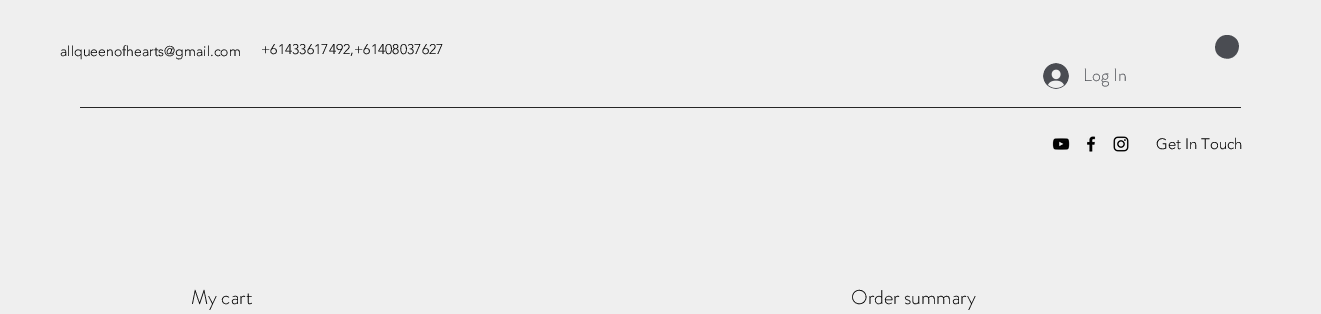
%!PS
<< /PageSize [1321 314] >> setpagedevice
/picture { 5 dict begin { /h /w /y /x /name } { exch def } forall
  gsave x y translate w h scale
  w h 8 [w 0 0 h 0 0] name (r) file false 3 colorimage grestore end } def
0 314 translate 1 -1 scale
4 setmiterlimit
0.937 setgray
0 0 1321 314 rectfill
/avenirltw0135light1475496-Light [14 0 0 -14 0 0] selectfont
0.008 setgray
60 56 moveto (allqueenofhearts@gmail.com) show
261 54 moveto (+61433617492,+61408037627) show
0.29 0.298 0.322 setrgbcolor
newpath 1230.5 35.5 moveto 1245.5 40 1238.5 62.5 1223.5 58 curveto 1208.5 53.5 1215.5 31.5 1230.5 35.5 curveto closepath fill
(img1.rgb) 1043 63 26 26 picture
/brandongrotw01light-Light [18 0 0 -18 0 0] selectfont
1083 81 moveto (Log In) show
0.149 setgray
80 107 1161 1 rectfill
(img2.rgb) 1052 138 18 12 picture
(img3.rgb) 1087 136 9 16 picture
(img4.rgb) 1113 136 16 16 picture
/avenirltw0135light1475496-Light [15 0 0 -15 0 0] selectfont
0.008 setgray
1156 149 moveto (Get In Touch) show
/brandongrotw01light-Light [20 0 0 -20 0 0] selectfont
191 304 moveto (My cart) show
851 304 moveto (Order summary) show
showpage
